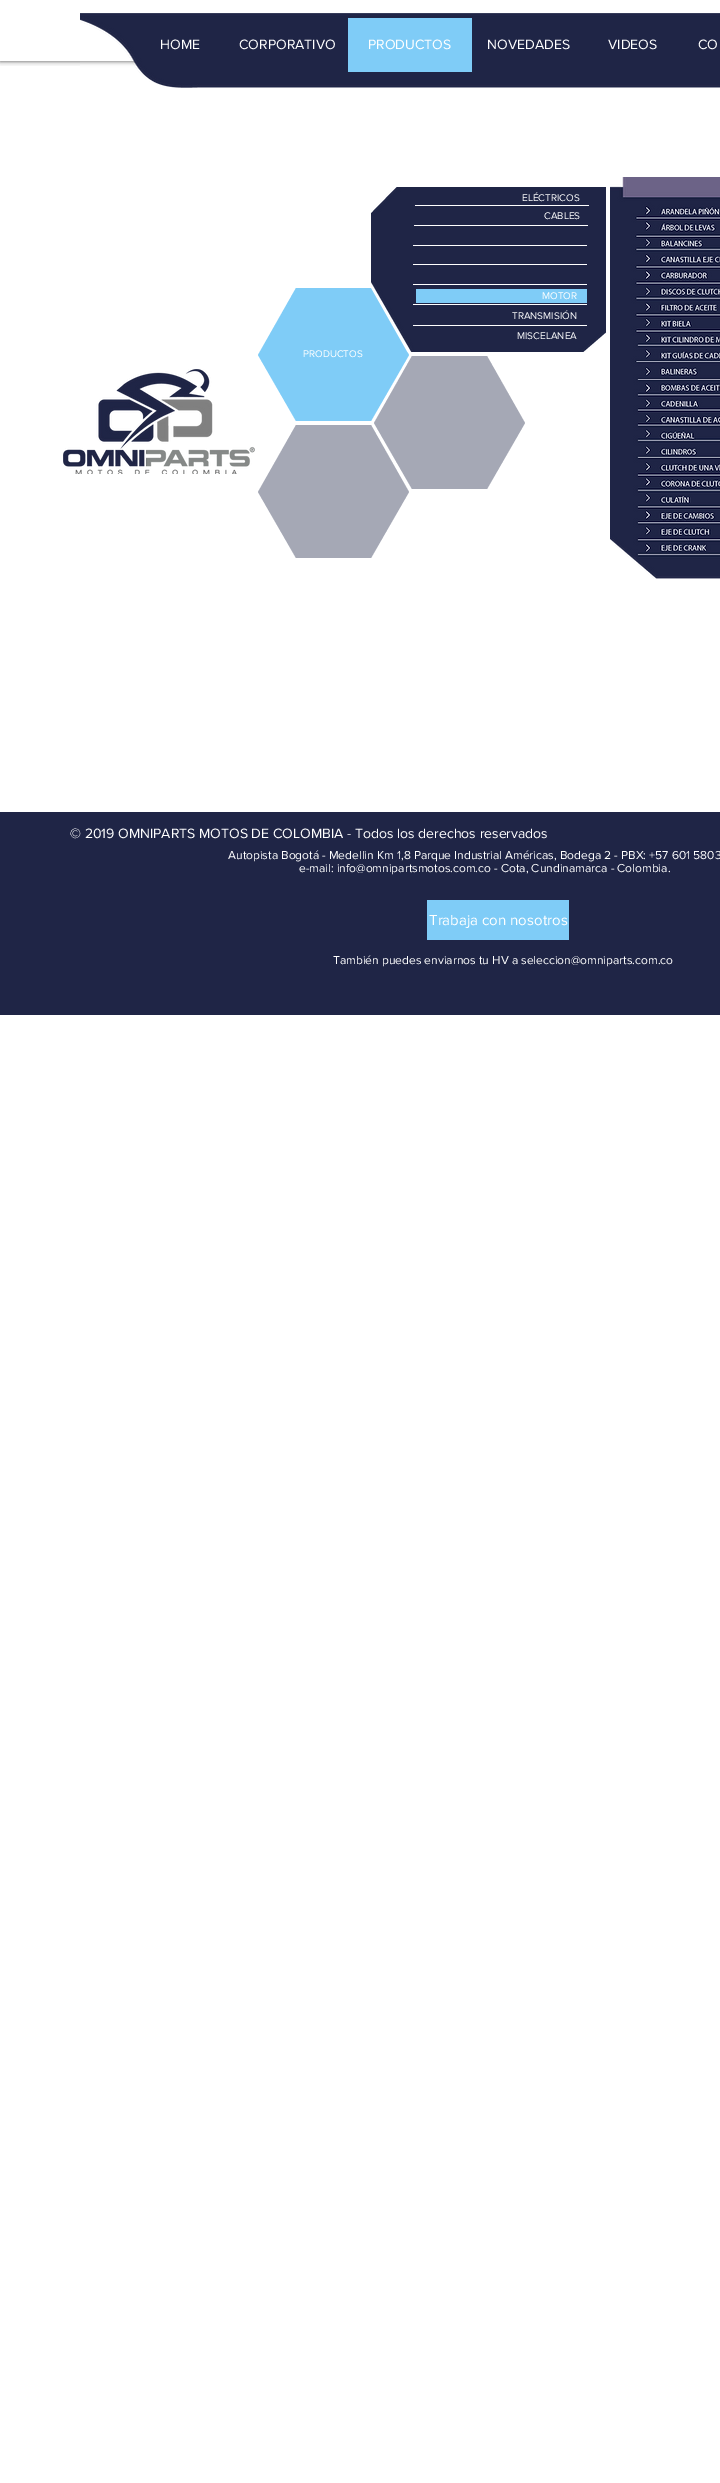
%!PS
<< /PageSize [720 2483] /PageUsesTransparency true >> setpagedevice
/alpha { dup .setfillconstantalpha .setstrokeconstantalpha } def
/roundrect { 5 dict begin { /r /h /w /y /x } { exch def } forall
  x r add y moveto x w add y 2 copy h add r arct x w add y h add x 1 index r arct
  x y h add x y r arct x y 2 copy exch w add exch r arct closepath end } def
/shadow { 12 dict begin { /a /b /q /h /w /y /x } { exch def } forall gsave /was 0 def
  9 -2 -9 { dup b mul 4 div /e exch def 1 sub .425 mul 2.718 exch exp 1 add a .99 .min exch div /now exch def
    1 1 now sub 1 was sub div sub alpha /was now def
    w h .min e 2 mul add 0 gt { x e sub y e sub w e 2 mul add h e 2 mul add
      q e add b .6 mul add w h .min 2 div e add .min 0 .max roundrect fill } if } for grestore end } def
/picture { 5 dict begin { /h /w /y /x /name } { exch def } forall
  gsave x y translate w h scale
  w h 8 [w 0 0 h 0 0] name (r) file false 3 colorimage grestore end } def
0 .pushpdf14devicefilter
0 2483 translate 1 -1 scale
4 setmiterlimit
1 setgray
0 0 720 2483 rectfill
gsave
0 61 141 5 rectclip
0 setgray
0 0 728 61 0 2.5 0.7 shadow
grestore
(img1.rgb) 80 13 640 75 picture
/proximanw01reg-Regular [14 0 0 -14 0 0] selectfont
160 49 moveto (HOME) show
239 49 moveto (CORPORATIVO) show
0.498 0.8 0.969 setrgbcolor
348 18 124 54 rectfill
1 setgray
368 49 moveto (PRODUCTOS) show
487 49 moveto (NOVEDADES) show
608 49 moveto (VIDEOS) show
698 49 moveto (CO) show
0.498 0.8 0.969 setrgbcolor
newpath 371 288 moveto 409 355 lineto 371 421 lineto 296 421 lineto 258 355 lineto 296 288 lineto closepath fill
(img2.rgb) 371 187 235 165 picture
(img3.rgb) 610 177 110 402 picture
/proximanw01reg-Regular [10 0 0 -10 0 0] selectfont
1 setgray
522 201 moveto (ELÉCTRICOS) show
415 205 174 1 rectfill
544 219 moveto (CABLES) show
414 225 174 1 rectfill
413 245 174 1 rectfill
413 264 174 1 rectfill
413 284 174 1 rectfill
0.498 0.8 0.969 setrgbcolor
416 289 171 14 rectfill
1 setgray
542 299 moveto (MOTOR) show
413 304 174 1 rectfill
512 319 moveto (TRANSMISIÓN) show
413 325 174 1 rectfill
517 339 moveto (MISCELANEA) show
303 357 moveto (PRODUCTOS) show
(img4.rgb) 63 369 192 105 picture
0.647 0.659 0.71 setrgbcolor
newpath 371 425 moveto 409 492 lineto 371 558 lineto 296 558 lineto 258 492 lineto 296 425 lineto closepath fill
newpath 487 356 moveto 525 423 lineto 487 489 lineto 412 489 lineto 374 423 lineto 412 356 lineto closepath fill
0.122 0.145 0.275 setrgbcolor
0 812 720 203 rectfill
/proximanw01reg-Regular [14 0 0 -14 0 0] selectfont
1 setgray
70 838 moveto (© 2019 OMNIPARTS MOTOS DE COLOMBIA - Todos los derechos reservados) show
/proximanw01reg-Regular [12 0 0 -12 0 0] selectfont
228 859 moveto (Autopista Bogotá - Medellin Km 1,8 Parque Industrial Américas, Bodega 2 - PBX: +57 601 5803) show
299 872 moveto (e-mail: info@omnipartsmotos.com.co - Cota, Cundinamarca - Colombia.) show
0.498 0.8 0.969 setrgbcolor
427 900 142 40 rectfill
/proximanw01reg-Regular [15 0 0 -15 0 0] selectfont
1 setgray
429 925 moveto (Trabaja con nosotros) show
/proximanw01reg-Regular [12 0 0 -12 0 0] selectfont
333 964 moveto (También puedes enviarnos tu HV a seleccion@omniparts.com.co) show
.poppdf14devicefilter showpage
